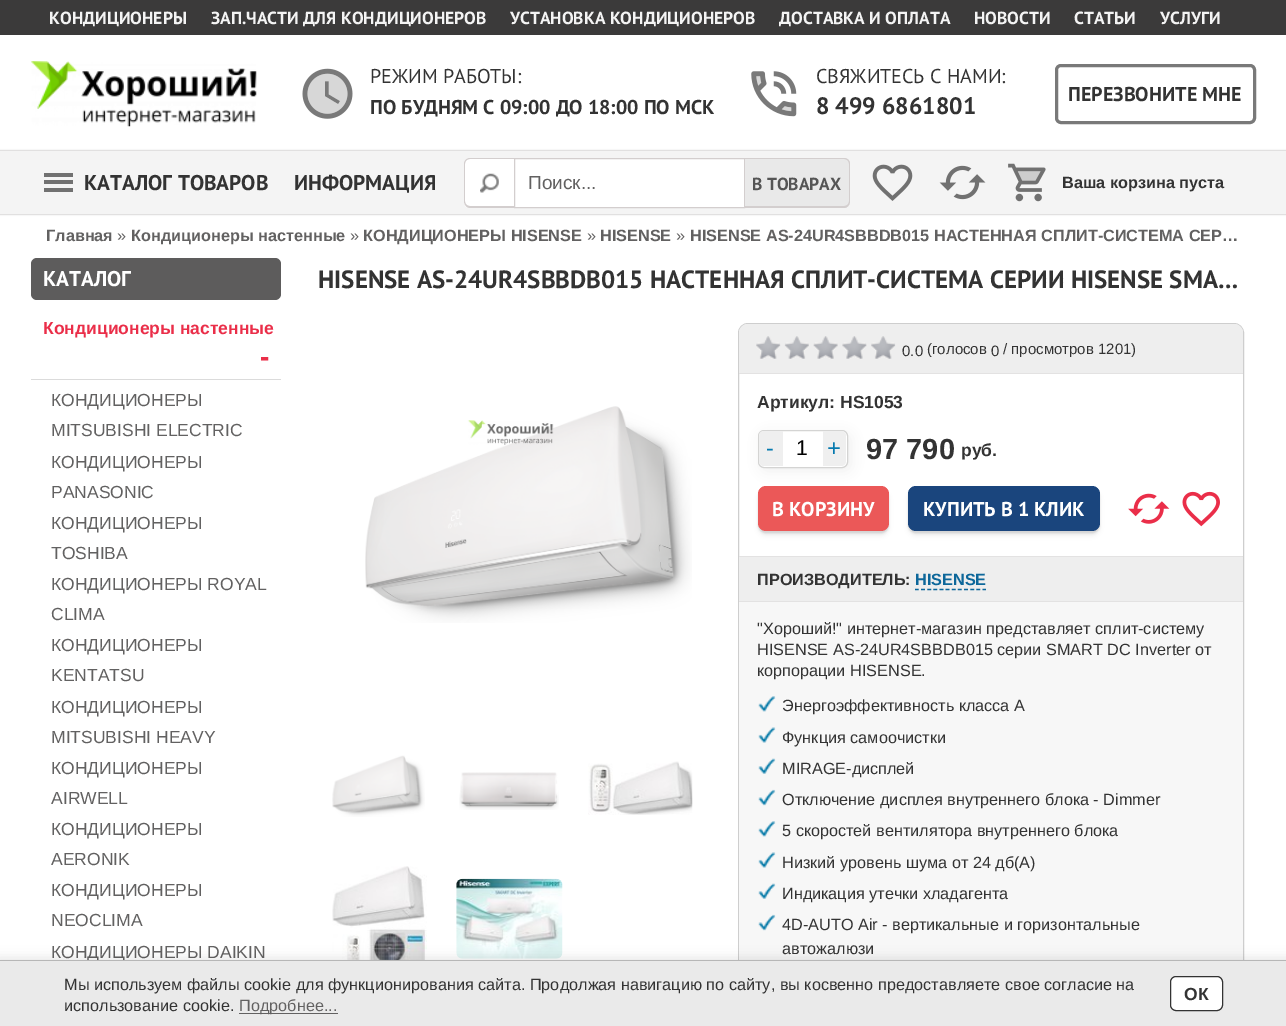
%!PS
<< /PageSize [1286 1026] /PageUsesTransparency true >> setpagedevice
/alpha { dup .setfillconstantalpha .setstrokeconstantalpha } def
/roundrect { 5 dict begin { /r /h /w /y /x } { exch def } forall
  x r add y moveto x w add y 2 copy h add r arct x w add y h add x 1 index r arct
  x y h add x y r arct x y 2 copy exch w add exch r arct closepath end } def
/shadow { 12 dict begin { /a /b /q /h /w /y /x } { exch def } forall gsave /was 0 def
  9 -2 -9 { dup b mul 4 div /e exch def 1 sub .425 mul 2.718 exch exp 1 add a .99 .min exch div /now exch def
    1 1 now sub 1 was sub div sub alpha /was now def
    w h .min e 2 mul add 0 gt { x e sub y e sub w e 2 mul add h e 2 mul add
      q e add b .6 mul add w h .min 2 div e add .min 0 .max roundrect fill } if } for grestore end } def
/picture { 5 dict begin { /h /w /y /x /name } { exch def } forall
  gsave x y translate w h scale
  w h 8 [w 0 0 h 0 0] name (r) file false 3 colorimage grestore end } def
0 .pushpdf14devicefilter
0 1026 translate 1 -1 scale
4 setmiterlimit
1 setgray
0 0 1286 1026 rectfill
0.231 0.227 0.227 setrgbcolor
0 0 1286 35 rectfill
/PTSans-Bold [17.5 0 0 -17.5 0 0] selectfont
0.957 setgray
49 24 moveto (КОНДИЦИОНЕРЫ) show
211 24 moveto (ЗАП.ЧАСТИ ДЛЯ КОНДИЦИОНЕРОВ) show
510 24 moveto (УСТАНОВКА КОНДИЦИОНЕРОВ) show
779 24 moveto (ДОСТАВКА И ОПЛАТА) show
974 24 moveto (НОВОСТИ) show
1074 24 moveto (СТАТЬИ) show
1160 24 moveto (УСЛУГИ) show
(img1.rgb) 31 61 226 66 picture
(img2.rgb) 302 68 51 51 picture
/PTSans-Regular [20 0 0 -20 0 0] selectfont
0.2 setgray
370 83 moveto (РЕЖИМ РАБОТЫ:) show
/PTSans-Bold [20 0 0 -20 0 0] selectfont
370 114 moveto (ПО БУДНЯМ С 09:00 ДО 18:00 ПО МСК) show
(img3.rgb) 751 71 46 46 picture
/PTSans-Regular [20 0 0 -20 0 0] selectfont
816 83 moveto (СВЯЖИТЕСЬ С НАМИ:) show
/PTSans-Bold [23.75 0 0 -23.75 0 0] selectfont
816 114 moveto (8 499 6861801) show
0.475 setgray
3 setlinewidth
1056.5 65.5 198 57 4.5 roundrect stroke
/PTSans-Bold [20 0 0 -20 0 0] selectfont
0.2 setgray
1068 101 moveto (ПЕРЕЗВОНИТЕ МНЕ) show
0.243 0.239 0.239 setrgbcolor
0 151 1286 63 0 1 0.5 shadow
0.957 setgray
0 151 1286 63 rectfill
0.443 setgray
44 173 29 4 rectfill
44 180 29 4 rectfill
44 188 29 4 rectfill
/PTSans-Bold [21.25 0 0 -21.25 0 0] selectfont
0.2 setgray
84 190 moveto (КАТАЛОГ ТОВАРОВ) show
294 190 moveto (ИНФОРМАЦИЯ) show
1 setgray
newpath 470 158 moveto 745 158 lineto 745 208 lineto 470 208 lineto 466.5 208 464 205.5 464 202 curveto 464 164 lineto 464 160.5 466.5 158 470 158 curveto closepath fill
newpath 470 158 moveto 514 158 lineto 514 208 lineto 470 208 lineto 466.5 208 464 205.5 464 202 curveto 464 164 lineto 464 160.5 466.5 158 470 158 curveto closepath fill
(img4.rgb) 480 173 19 20 picture
0.827 0.808 0.808 setrgbcolor
newpath 470 158 moveto 514 158 lineto 514 208 lineto 470 208 lineto 467 208 464 205 464 201 curveto 464 164 lineto 464 160 467 158 470 158 curveto closepath 470 159 moveto 514 159 lineto 514 206 lineto 470 206 lineto 467 206 465 204 465 201 curveto 465 164 lineto 465 161 467 159 470 159 curveto closepath eofill
1 setlinewidth
514.5 158.5 230 49 rectstroke
/LiberationSans-Regular [19 0 0 -19 0 0] selectfont
0.384 0.38 0.38 setrgbcolor
528 189 moveto (Поиск...) show
0.914 setgray
newpath 745 158 moveto 844 158 lineto 847.5 158 850 160.5 850 164 curveto 850 202 lineto 850 205.5 847.5 208 844 208 curveto 745 208 lineto closepath fill
0.827 0.808 0.808 setrgbcolor
newpath 745 158 moveto 844 158 lineto 847 158 850 160 850 164 curveto 850 201 lineto 850 205 847 208 844 208 curveto 745 208 lineto closepath 745 159 moveto 844 159 lineto 847 159 849 161 849 164 curveto 849 201 lineto 849 204 847 206 844 206 curveto 745 206 lineto closepath eofill
/PTSans-Bold [17.5 0 0 -17.5 0 0] selectfont
0.333 setgray
752 190 moveto (В ТОВАРАХ) show
(img5.rgb) 872 164 41 37 picture
(img6.rgb) 939 165 47 35 picture
(img7.rgb) 1008 163 38 39 picture
/LiberationSans-Bold [16.25 0 0 -16.25 0 0] selectfont
0.2 setgray
1062 188 moveto (Ваша корзина пуста) show
0.384 0.38 0.38 setrgbcolor
46 241 moveto (Главная) show
/LiberationSans-Regular [16.25 0 0 -16.25 0 0] selectfont
117 241 moveto (») show
/LiberationSans-Bold [16.25 0 0 -16.25 0 0] selectfont
131 241 moveto (Кондиционеры настенные) show
/LiberationSans-Regular [16.25 0 0 -16.25 0 0] selectfont
350 241 moveto (») show
/LiberationSans-Bold [16.25 0 0 -16.25 0 0] selectfont
363 241 moveto (КОНДИЦИОНЕРЫ HISENSE) show
/LiberationSans-Regular [16.25 0 0 -16.25 0 0] selectfont
587 241 moveto (») show
/LiberationSans-Bold [16.25 0 0 -16.25 0 0] selectfont
600 241 moveto (HISENSE) show
/LiberationSans-Regular [16.25 0 0 -16.25 0 0] selectfont
676 241 moveto (») show
/LiberationSans-Bold [16.25 0 0 -16.25 0 0] selectfont
690 241 moveto (HISENSE AS-24UR4SBBDB015 НАСТЕННАЯ СПЛИТ-СИСТЕМА СЕР…) show
0.365 0.361 0.361 setrgbcolor
31 258 250 42 6 roundrect fill
/PTSans-Bold [21.25 0 0 -21.25 0 0] selectfont
1 setgray
43 286 moveto (КАТАЛОГ) show
0.859 setgray
31 379 250 1 rectfill
/LiberationSans-Bold [17.5 0 0 -17.5 0 0] selectfont
0.918 0.18 0.286 setrgbcolor
43 334 moveto (Кондиционеры настенные) show
/LiberationSans-Bold [28 0 0 -28 0 0] selectfont
260 366 moveto (-) show
/LiberationSans-Regular [17.5 0 0 -17.5 0 0] selectfont
0.384 0.38 0.38 setrgbcolor
51 406 moveto (КОНДИЦИОНЕРЫ) show
51 436 moveto (MITSUBISHI ELECTRIC) show
51 468 moveto (КОНДИЦИОНЕРЫ) show
51 498 moveto (PANASONIC) show
51 529 moveto (КОНДИЦИОНЕРЫ) show
51 559 moveto (TOSHIBA) show
51 590 moveto (КОНДИЦИОНЕРЫ ROYAL) show
51 620 moveto (CLIMA) show
51 651 moveto (КОНДИЦИОНЕРЫ) show
51 681 moveto (KENTATSU) show
51 713 moveto (КОНДИЦИОНЕРЫ) show
51 743 moveto (MITSUBISHI HEAVY) show
51 774 moveto (КОНДИЦИОНЕРЫ) show
51 804 moveto (AIRWELL) show
51 835 moveto (КОНДИЦИОНЕРЫ) show
51 865 moveto (AERONIK) show
51 896 moveto (КОНДИЦИОНЕРЫ) show
51 926 moveto (NEOCLIMA) show
51 958 moveto (КОНДИЦИОНЕРЫ DAIKIN) show
/PTSans-Bold [25 0 0 -25 0 0] selectfont
0.2 setgray
318 288 moveto (HISENSE AS-24UR4SBBDB015 НАСТЕННАЯ СПЛИТ-СИСТЕМА СЕРИИ HISENSE SMA…) show
(img8.rgb) 365 406 327 217 picture
(img9.rgb) 332 755 93 62 picture
(img10.rgb) 459 772 100 38 picture
(img11.rgb) 588 761 105 54 picture
(img12.rgb) 332 866 95 94 picture
(img13.rgb) 456 878 107 81 picture
0.808 setgray
738.5 323.5 505 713 9.5 roundrect stroke
0.933 setgray
newpath 748 324 moveto 1234 324 lineto 1239 324 1243 328 1243 333 curveto 1243 374 lineto 739 374 lineto 739 333 lineto 739 328 743 324 748 324 curveto closepath fill
0.89 0.886 0.886 setrgbcolor
739 373 504 1 rectfill
(img14.rgb) 756 336 140 23 picture
/LiberationSans-Regular [15 0 0 -15 0 0] selectfont
0.2 setgray
902 356 moveto (0.0) show
927 354 moveto (\(голосов) show
991 356 moveto (0) show
1003 354 moveto (/ просмотров 1201\)) show
/LiberationSans-Bold [17.5 0 0 -17.5 0 0] selectfont
757 408 moveto (Артикул: HS1053) show
0 setgray
758 488 131 45 8 0.5 0.05 shadow
758 489 131 45 8 1 0.05 shadow
758 491 131 45 8 2.5 0.05 shadow
0.922 0.345 0.345 setrgbcolor
758 486 131 45 8 roundrect fill
gsave
newpath 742 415 moveto 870 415 lineto 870 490 lineto 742 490 lineto closepath 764 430 moveto 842 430 lineto 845.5 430 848 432.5 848 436 curveto 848 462 lineto 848 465.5 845.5 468 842 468 curveto 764 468 lineto 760.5 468 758 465.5 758 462 curveto 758 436 lineto 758 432.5 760.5 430 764 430 curveto closepath eoclip newpath
0.412 0.404 0.404 setrgbcolor
761 434 90 37 6 6 0.1 shadow
grestore
0.831 0.831 0.827 setrgbcolor
758.5 430.5 89 37 5.5 roundrect stroke
0.937 setgray
newpath 764 431 moveto 783 431 lineto 783 466 lineto 764 466 lineto 761 466 759 464 759 461 curveto 759 436 lineto 759 433 761 431 764 431 curveto closepath fill
/LiberationSans-Regular [23.75 0 0 -23.75 0 0] selectfont
0.027 0.478 0.686 setrgbcolor
766 456 moveto (-) show
/LiberationSans-Regular [21.25 0 0 -21.25 0 0] selectfont
0 setgray
796 455 moveto (1) show
0.937 setgray
newpath 823 431 moveto 841 431 lineto 844 431 846 433 846 436 curveto 846 461 lineto 846 464 844 466 841 466 curveto 823 466 lineto closepath fill
/LiberationSans-Regular [23.75 0 0 -23.75 0 0] selectfont
0.027 0.478 0.686 setrgbcolor
827 456 moveto (+) show
/LiberationSans-Bold [29 0 0 -29 0 0] selectfont
0.2 setgray
866 459 moveto (97 790) show
/LiberationSans-Bold [17.5 0 0 -17.5 0 0] selectfont
961 456 moveto (руб.) show
/PTSans-Bold [20 0 0 -20 0 0] selectfont
1 setgray
772 516 moveto (В КОРЗИНУ) show
0 setgray
908 488 192 45 8 0.5 0.05 shadow
908 489 192 45 8 1 0.05 shadow
908 491 192 45 8 2.5 0.05 shadow
0.102 0.271 0.49 setrgbcolor
908 486 192 45 8 roundrect fill
1 setgray
923 516 moveto (КУПИТЬ В 1 КЛИК) show
(img15.rgb) 1128 493 42 31 picture
(img16.rgb) 1182 491 38 36 picture
0.933 setgray
739 557 504 44 rectfill
0.89 0.886 0.886 setrgbcolor
739 556 504 1 rectfill
/LiberationSans-Bold [16.25 0 0 -16.25 0 0] selectfont
0.2 setgray
757 585 moveto (ПРОИЗВОДИТЕЛЬ:) show
0.051 0.404 0.604 setrgbcolor
915 585 moveto (HISENSE) show
1.2 setlinewidth
[3.75 2.39] 0 setdash
newpath 915 589.5 moveto 986 589.5 lineto stroke
0.969 setgray
739 602 504 358 rectfill
0.89 0.886 0.886 setrgbcolor
739 601 504 1 rectfill
/LiberationSans-Regular [16.25 0 0 -16.25 0 0] selectfont
0.2 setgray
757 634 moveto ("Хороший!" интернет-магазин представляет сплит-систему) show
757 655 moveto (HISENSE AS-24UR4SBBDB015 серии SMART DC Inverter от) show
757 676 moveto (корпорации HISENSE.) show
(img17.rgb) 758 696 18 16 picture
782 711 moveto (Энергоэффективность класса A) show
(img18.rgb) 758 727 18 16 picture
782 743 moveto (Функция самоочистки) show
(img19.rgb) 758 758 18 16 picture
782 774 moveto (MIRAGE-дисплей) show
(img20.rgb) 758 789 18 17 picture
782 805 moveto (Отключение дисплея внутреннего блока - Dimmer) show
(img17.rgb) 758 821 18 16 picture
782 836 moveto (5 скоростей вентилятора внутреннего блока) show
(img18.rgb) 758 852 18 16 picture
782 868 moveto (Низкий уровень шума от 24 дб\(А\)) show
(img19.rgb) 758 883 18 16 picture
782 899 moveto (Индикация утечки хладагента) show
(img20.rgb) 758 914 18 17 picture
782 930 moveto (4D-AUTO Air - вертикальные и горизонтальные) show
782 954 moveto (автожалюзи) show
0 setgray
-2 958 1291 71 0 5.5 0.1 shadow
0.918 setgray
0 961 1286 65 rectfill
0.718 setgray
0 960 1286 1 rectfill
0.2 setgray
64 990 moveto (Мы используем файлы cookie для функционирования сайта. Продолжая навигацию по сайту, вы косвенно предоставляете свое согласие на) show
64 1011 moveto (использование cookie.) show
0.384 0.38 0.38 setrgbcolor
239 1013 99 1 rectfill
239 1011 moveto (Подробнее...) show
1 setgray
1170.5 976.5 52 34 5.5 roundrect gsave fill grestore
0.2 setgray
1 setlinewidth
[] 0 setdash
stroke
/LiberationSans-Bold [17.5 0 0 -17.5 0 0] selectfont
1184 1000 moveto (ОК) show
.poppdf14devicefilter showpage
